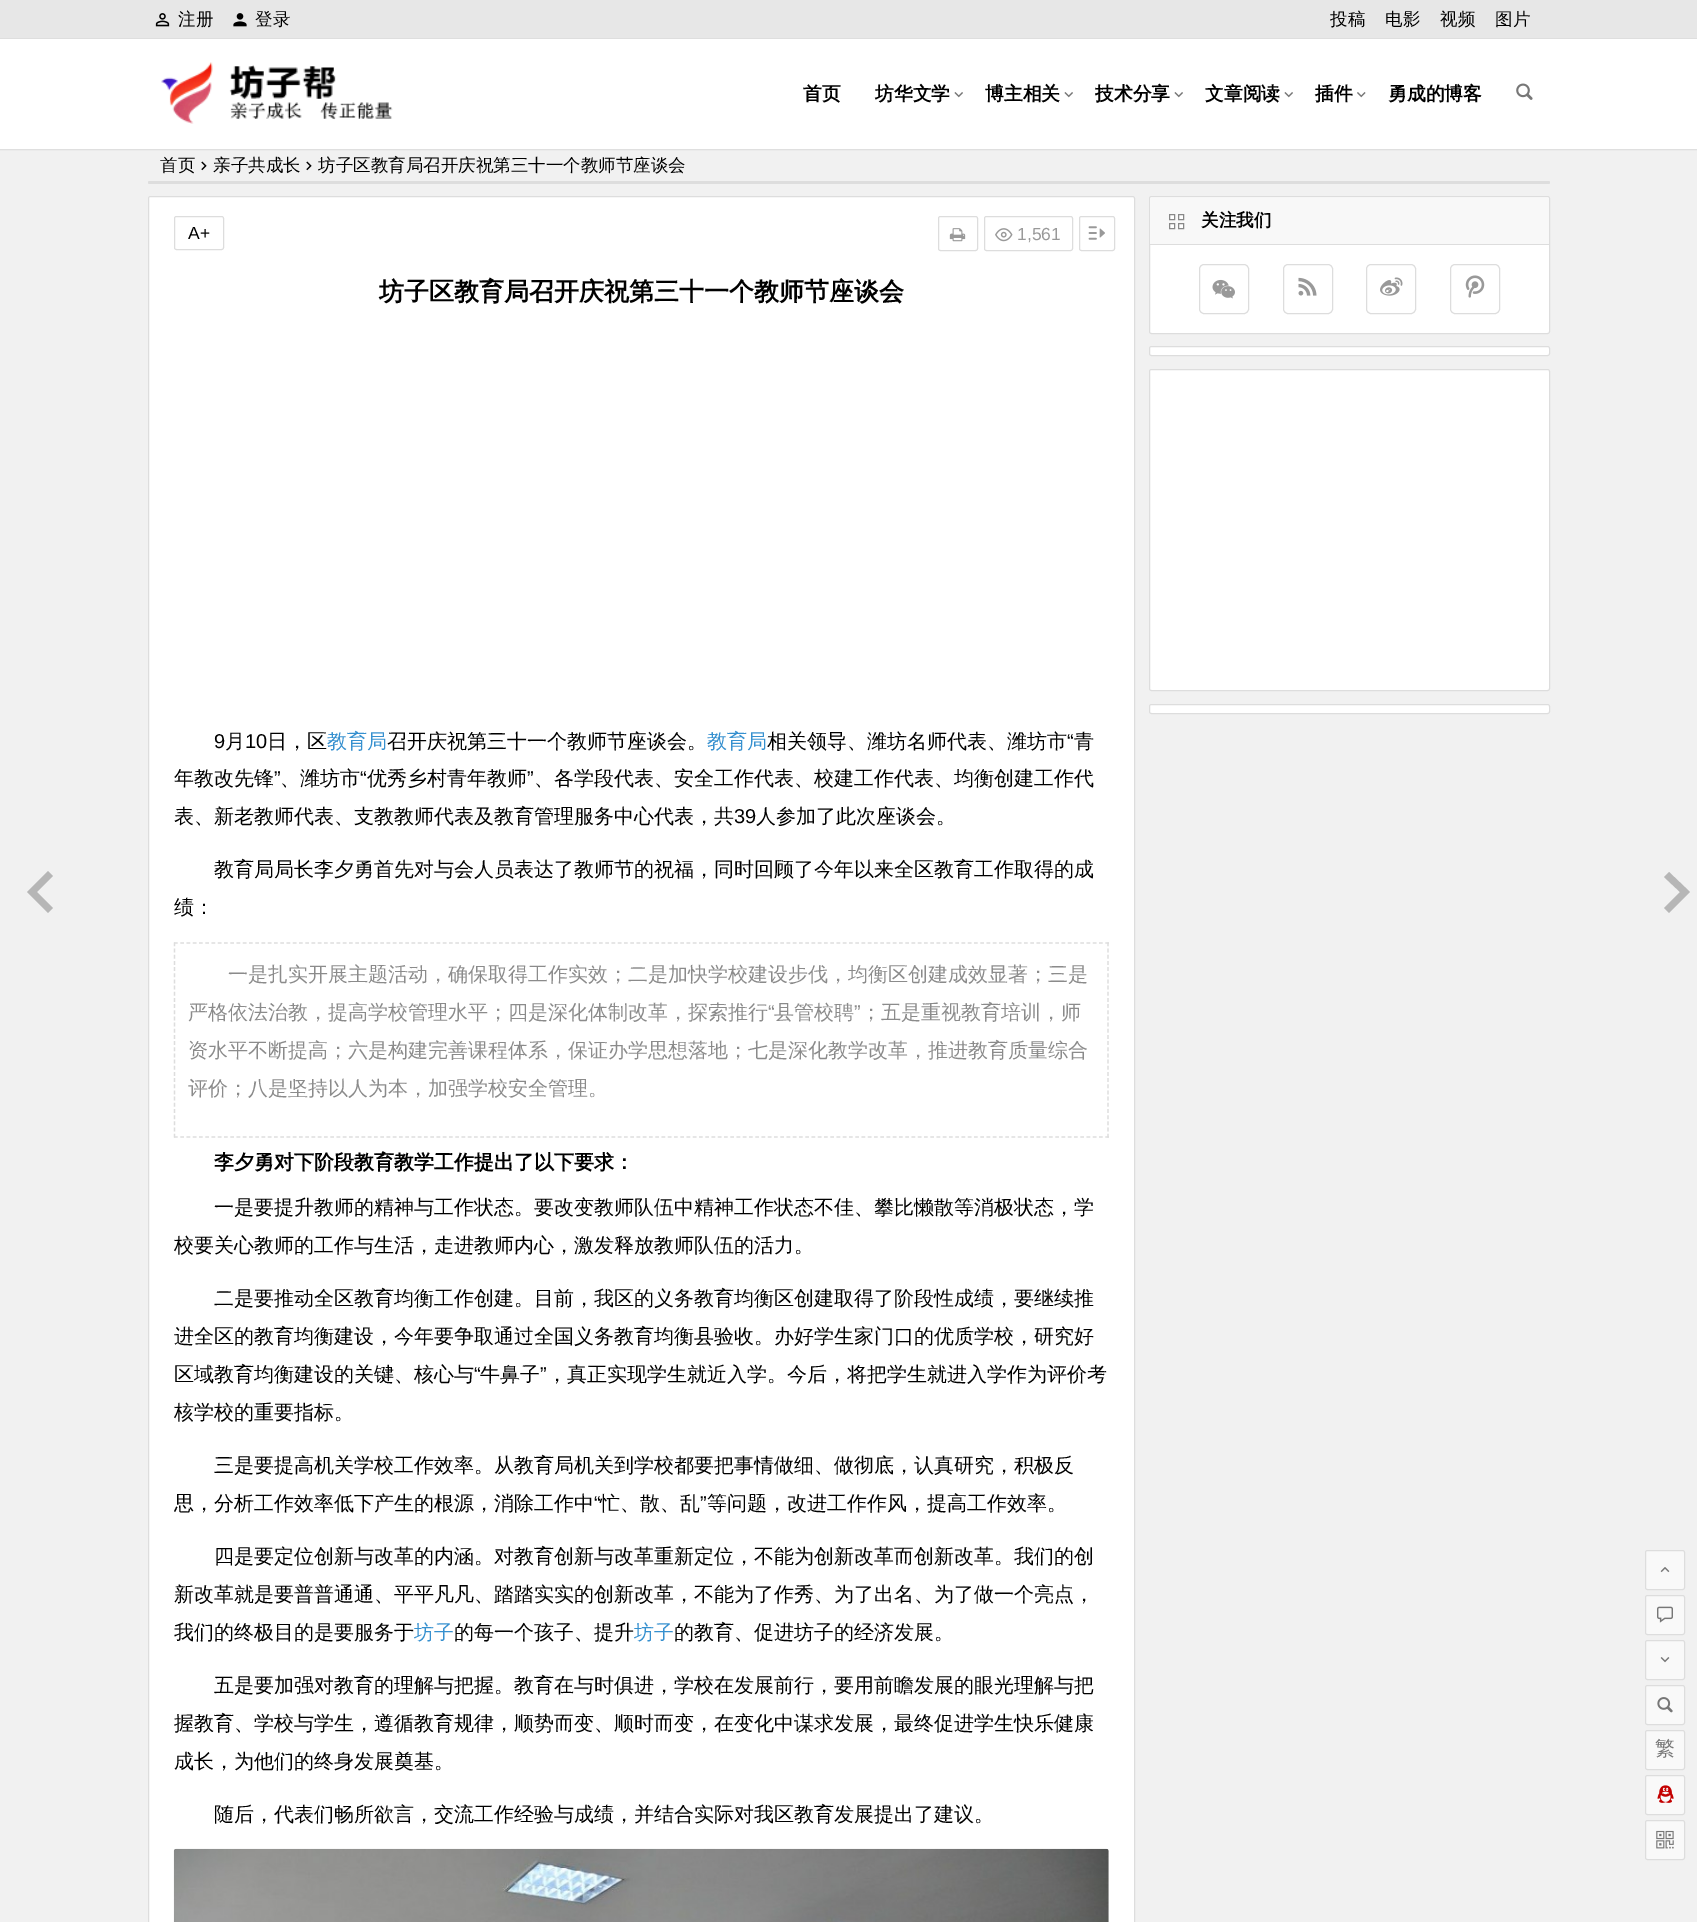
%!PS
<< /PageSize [1697 1922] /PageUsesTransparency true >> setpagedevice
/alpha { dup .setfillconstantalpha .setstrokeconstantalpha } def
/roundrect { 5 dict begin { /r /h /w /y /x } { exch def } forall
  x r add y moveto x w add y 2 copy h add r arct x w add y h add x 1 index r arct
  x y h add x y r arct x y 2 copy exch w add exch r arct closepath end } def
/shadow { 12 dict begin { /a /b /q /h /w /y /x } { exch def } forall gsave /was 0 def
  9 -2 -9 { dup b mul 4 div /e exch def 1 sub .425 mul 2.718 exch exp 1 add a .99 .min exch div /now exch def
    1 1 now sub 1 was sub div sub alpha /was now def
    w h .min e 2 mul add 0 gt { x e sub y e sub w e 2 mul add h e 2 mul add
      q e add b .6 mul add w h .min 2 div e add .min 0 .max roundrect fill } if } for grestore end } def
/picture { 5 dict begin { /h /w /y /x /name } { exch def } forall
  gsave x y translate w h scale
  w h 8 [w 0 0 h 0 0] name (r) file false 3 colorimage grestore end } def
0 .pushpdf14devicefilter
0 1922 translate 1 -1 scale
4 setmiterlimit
0.945 setgray
0 0 1697 1922 rectfill
0.906 setgray
0 0 1697 38 rectfill
0.871 setgray
0 38 1697 1 rectfill
(img1.rgb) 155 13 15 14 picture
/WenQuanYiZenHei-Medium [17.5 0 0 -17.5 0 0] selectfont
0 setgray
178 25 moveto (注册) show
(img2.rgb) 233 13 14 14 picture
255 25 moveto (登录) show
1330 25 moveto (投稿) show
1385 25 moveto (电影) show
1440 25 moveto (视频) show
1495 25 moveto (图片) show
0 40 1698 110 0 0.5 0.08 shadow
1 setgray
0 39 1697 110 rectfill
(img3.rgb) 161 62 232 62 picture
/WenQuanYiZenHei-Bold [18.75 0 0 -18.75 0 0] selectfont
0 setgray
803 100 moveto (首页) show
875 100 moveto (坊华文学) show
(img4.rgb) 954 92 9 6 picture
985 100 moveto (博主相关) show
(img4.rgb) 1064 92 9 6 picture
1095 100 moveto (技术分享) show
(img4.rgb) 1174 92 9 6 picture
1205 100 moveto (文章阅读) show
(img4.rgb) 1284 92 9 6 picture
1315 100 moveto (插件) show
(img5.rgb) 1357 92 9 6 picture
1388 100 moveto (勇成的博客) show
(img6.rgb) 1516 83 17 17 picture
/WenQuanYiZenHei-Medium [17.5 0 0 -17.5 0 0] selectfont
160 171 moveto (首页) show
(img7.rgb) 201 161 6 10 picture
213 171 moveto (亲子共成长) show
(img7.rgb) 306 161 6 10 picture
318 171 moveto (坊子区教育局召开庆祝第三十一个教师节座谈会) show
0.867 setgray
148 181 1402 3 1.5 roundrect fill
1 setgray
1149.5 196.5 400 137 2 roundrect gsave fill grestore
0.867 setgray
stroke
0.973 setgray
1150 198 399 46 rectfill
0.867 setgray
1150 244 399 1 rectfill
1 setgray
newpath 1169.5 214.5 moveto 1174.5 214.5 lineto 1174.5 219.5 lineto 1169.5 219.5 lineto closepath gsave fill grestore
0.533 setgray
stroke
1 setgray
newpath 1178.5 214.5 moveto 1183.5 214.5 lineto 1183.5 219.5 lineto 1178.5 219.5 lineto closepath gsave fill grestore
0.533 setgray
stroke
1 setgray
newpath 1169.5 223.5 moveto 1174.5 223.5 lineto 1174.5 228.5 lineto 1169.5 228.5 lineto closepath gsave fill grestore
0.533 setgray
stroke
1 setgray
newpath 1178.5 223.5 moveto 1183.5 223.5 lineto 1183.5 228.5 lineto 1178.5 228.5 lineto closepath gsave fill grestore
0.533 setgray
stroke
/WenQuanYiZenHei-Bold [17.5 0 0 -17.5 0 0] selectfont
0 setgray
1201 226 moveto (关注我们) show
0.867 setgray
1199.5 264.5 49 49 4.5 roundrect stroke
(img8.rgb) 1212 279 23 20 picture
1283.5 264.5 49 49 4.5 roundrect stroke
(img9.rgb) 1298 277 19 19 picture
1366.5 264.5 49 49 4.5 roundrect stroke
(img10.rgb) 1380 277 23 19 picture
1450.5 264.5 49 49 4.5 roundrect stroke
(img11.rgb) 1465 275 20 23 picture
1 setgray
1149.5 346.5 400 9 2 roundrect gsave fill grestore
0.867 setgray
stroke
1 setgray
1149.5 369.5 400 321 2 roundrect gsave fill grestore
0.867 setgray
stroke
1 setgray
1149.5 704.5 400 9 2 roundrect gsave fill grestore
0.867 setgray
stroke
1 setgray
148.5 196.5 986 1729 2 roundrect gsave fill grestore
0.867 setgray
stroke
174.5 216.5 49 33 2 roundrect stroke
/LiberationSans-Regular [17.5 0 0 -17.5 0 0] selectfont
0 setgray
188 239 moveto (A+) show
0.867 setgray
938.5 216.5 39 34 2 roundrect stroke
(img12.rgb) 949 228 17 14 picture
984.5 216.5 88 34 2 roundrect stroke
(img13.rgb) 995 228 18 14 picture
0.6 setgray
1017 240 moveto (1,561) show
0.867 setgray
1079.5 216.5 35 34 2 roundrect stroke
(img14.rgb) 1088 226 17 14 picture
/LiberationSans-Regular [20 0 0 -20 0 0] selectfont
0 setgray
214 748 moveto (9) show
/WenQuanYiZenHei-Medium [20 0 0 -20 0 0] selectfont
225 748 moveto (月) show
/LiberationSans-Regular [20 0 0 -20 0 0] selectfont
245 748 moveto (10) show
/WenQuanYiZenHei-Medium [20 0 0 -20 0 0] selectfont
267 748 moveto (日，区) show
0.212 0.565 0.812 setrgbcolor
327 748 moveto (教育局) show
0 setgray
387 748 moveto (召开庆祝第三十一个教师节座谈会。) show
0.212 0.565 0.812 setrgbcolor
707 748 moveto (教育局) show
0 setgray
767 748 moveto (相关领导、潍坊名师代表、潍坊市) show
/LiberationSans-Regular [20 0 0 -20 0 0] selectfont
1067 748 moveto (“) show
/WenQuanYiZenHei-Medium [20 0 0 -20 0 0] selectfont
1074 748 moveto (青) show
174 785 moveto (年教改先锋) show
/LiberationSans-Regular [20 0 0 -20 0 0] selectfont
274 785 moveto (”) show
/WenQuanYiZenHei-Medium [20 0 0 -20 0 0] selectfont
280 785 moveto (、潍坊市) show
/LiberationSans-Regular [20 0 0 -20 0 0] selectfont
360 785 moveto (“) show
/WenQuanYiZenHei-Medium [20 0 0 -20 0 0] selectfont
367 785 moveto (优秀乡村青年教师) show
/LiberationSans-Regular [20 0 0 -20 0 0] selectfont
527 785 moveto (”) show
/WenQuanYiZenHei-Medium [20 0 0 -20 0 0] selectfont
534 785 moveto (、各学段代表、安全工作代表、校建工作代表、均衡创建工作代) show
174 823 moveto (表、新老教师代表、支教教师代表及教育管理服务中心代表，共) show
/LiberationSans-Regular [20 0 0 -20 0 0] selectfont
734 823 moveto (39) show
/WenQuanYiZenHei-Medium [20 0 0 -20 0 0] selectfont
756 823 moveto (人参加了此次座谈会。) show
214 876 moveto (教育局局长李夕勇首先对与会人员表达了教师节的祝福，同时回顾了今年以来全区教育工作取得的成) show
174 914 moveto (绩：) show
0.867 setgray
1.2 setlinewidth
[3.75 2.5] 0 setdash
newpath 174 943 moveto 1109 943 lineto stroke
[3.75 2.42] 0 setdash
newpath 1108 942.5 moveto 1108 1137.5 lineto stroke
[3.75 2.5] 0 setdash
newpath 174 1137 moveto 1109 1137 lineto stroke
[3.75 2.42] 0 setdash
newpath 174.5 942.5 moveto 174.5 1137.5 lineto stroke
0.545 setgray
228 981 moveto (一是扎实开展主题活动，确保取得工作实效；二是加快学校建设步伐，均衡区创建成效显著；三是) show
188 1019 moveto (严格依法治教，提高学校管理水平；四是深化体制改革，探索推行) show
/LiberationSans-Regular [20 0 0 -20 0 0] selectfont
768 1019 moveto (“) show
/WenQuanYiZenHei-Medium [20 0 0 -20 0 0] selectfont
774 1019 moveto (县管校聘) show
/LiberationSans-Regular [20 0 0 -20 0 0] selectfont
854 1019 moveto (”) show
/WenQuanYiZenHei-Medium [20 0 0 -20 0 0] selectfont
861 1019 moveto (；五是重视教育培训，师) show
188 1057 moveto (资水平不断提高；六是构建完善课程体系，保证办学思想落地；七是深化教学改革，推进教育质量综合) show
188 1095 moveto (评价；八是坚持以人为本，加强学校安全管理。) show
/WenQuanYiZenHei-Bold [20 0 0 -20 0 0] selectfont
0 setgray
214 1169 moveto (李夕勇对下阶段教育教学工作提出了以下要求：) show
/WenQuanYiZenHei-Medium [20 0 0 -20 0 0] selectfont
214 1214 moveto (一是要提升教师的精神与工作状态。要改变教师队伍中精神工作状态不佳、攀比懒散等消极状态，学) show
174 1252 moveto (校要关心教师的工作与生活，走进教师内心，激发释放教师队伍的活力。) show
214 1305 moveto (二是要推动全区教育均衡工作创建。目前，我区的义务教育均衡区创建取得了阶段性成绩，要继续推) show
174 1343 moveto (进全区的教育均衡建设，今年要争取通过全国义务教育均衡县验收。办好学生家门口的优质学校，研究好) show
174 1381 moveto (区域教育均衡建设的关键、核心与) show
/LiberationSans-Regular [20 0 0 -20 0 0] selectfont
474 1381 moveto (“) show
/WenQuanYiZenHei-Medium [20 0 0 -20 0 0] selectfont
480 1381 moveto (牛鼻子) show
/LiberationSans-Regular [20 0 0 -20 0 0] selectfont
540 1381 moveto (”) show
/WenQuanYiZenHei-Medium [20 0 0 -20 0 0] selectfont
547 1381 moveto (，真正实现学生就近入学。今后，将把学生就进入学作为评价考) show
174 1419 moveto (核学校的重要指标。) show
214 1472 moveto (三是要提高机关学校工作效率。从教育局机关到学校都要把事情做细、做彻底，认真研究，积极反) show
174 1510 moveto (思，分析工作效率低下产生的根源，消除工作中) show
/LiberationSans-Regular [20 0 0 -20 0 0] selectfont
594 1510 moveto (“) show
/WenQuanYiZenHei-Medium [20 0 0 -20 0 0] selectfont
600 1510 moveto (忙、散、乱) show
/LiberationSans-Regular [20 0 0 -20 0 0] selectfont
700 1510 moveto (”) show
/WenQuanYiZenHei-Medium [20 0 0 -20 0 0] selectfont
707 1510 moveto (等问题，改进工作作风，提高工作效率。) show
214 1563 moveto (四是要定位创新与改革的内涵。对教育创新与改革重新定位，不能为创新改革而创新改革。我们的创) show
174 1601 moveto (新改革就是要普普通通、平平凡凡、踏踏实实的创新改革，不能为了作秀、为了出名、为了做一个亮点，) show
174 1639 moveto (我们的终极目的是要服务于) show
0.212 0.565 0.812 setrgbcolor
414 1639 moveto (坊子) show
0 setgray
454 1639 moveto (的每一个孩子、提升) show
0.212 0.565 0.812 setrgbcolor
634 1639 moveto (坊子) show
0 setgray
674 1639 moveto (的教育、促进坊子的经济发展。) show
214 1692 moveto (五是要加强对教育的理解与把握。教育在与时俱进，学校在发展前行，要用前瞻发展的眼光理解与把) show
174 1730 moveto (握教育、学校与学生，遵循教育规律，顺势而变、顺时而变，在变化中谋求发展，最终促进学生快乐健康) show
174 1768 moveto (成长，为他们的终身发展奠基。) show
214 1821 moveto (随后，代表们畅所欲言，交流工作经验与成绩，并结合实际对我区教育发展提出了建议。) show
(img15.rgb) 173 1848 936 74 picture
/WenQuanYiZenHei-Bold [25 0 0 -25 0 0] selectfont
379 300 moveto (坊子区教育局召开庆祝第三十一个教师节座谈会) show
0.714 setgray
newpath 53 908 moveto 37 892 lineto 53 876 lineto 48 871 lineto 27 892 lineto 48 913 lineto closepath fill
newpath 1664 908 moveto 1680 892 lineto 1664 877 lineto 1669 872 lineto 1690 892 lineto 1669 913 lineto closepath fill
0.976 setgray
1645.5 1550.5 39 39 2 roundrect gsave fill grestore
0.867 setgray
1 setlinewidth
[] 0 setdash
stroke
(img16.rgb) 1660 1567 10 6 picture
0.976 setgray
1645.5 1595.5 39 39 2 roundrect gsave fill grestore
0.867 setgray
stroke
(img17.rgb) 1657 1606 16 17 picture
0.976 setgray
1645.5 1640.5 39 39 2 roundrect gsave fill grestore
0.867 setgray
stroke
(img18.rgb) 1660 1657 10 6 picture
0.976 setgray
1645.5 1685.5 39 39 2 roundrect gsave fill grestore
0.867 setgray
stroke
(img19.rgb) 1657 1697 16 16 picture
0.976 setgray
1645.5 1730.5 39 39 2 roundrect gsave fill grestore
0.867 setgray
stroke
/WenQuanYiZenHei-Medium [20 0 0 -20 0 0] selectfont
0.467 setgray
1655 1755 moveto (繁) show
0.976 setgray
1645.5 1775.5 39 39 2 roundrect gsave fill grestore
0.867 setgray
stroke
(img20.rgb) 1657 1785 17 18 picture
0.976 setgray
1645.5 1820.5 39 39 2 roundrect gsave fill grestore
0.867 setgray
stroke
(img21.rgb) 1656 1830 18 19 picture
.poppdf14devicefilter showpage
